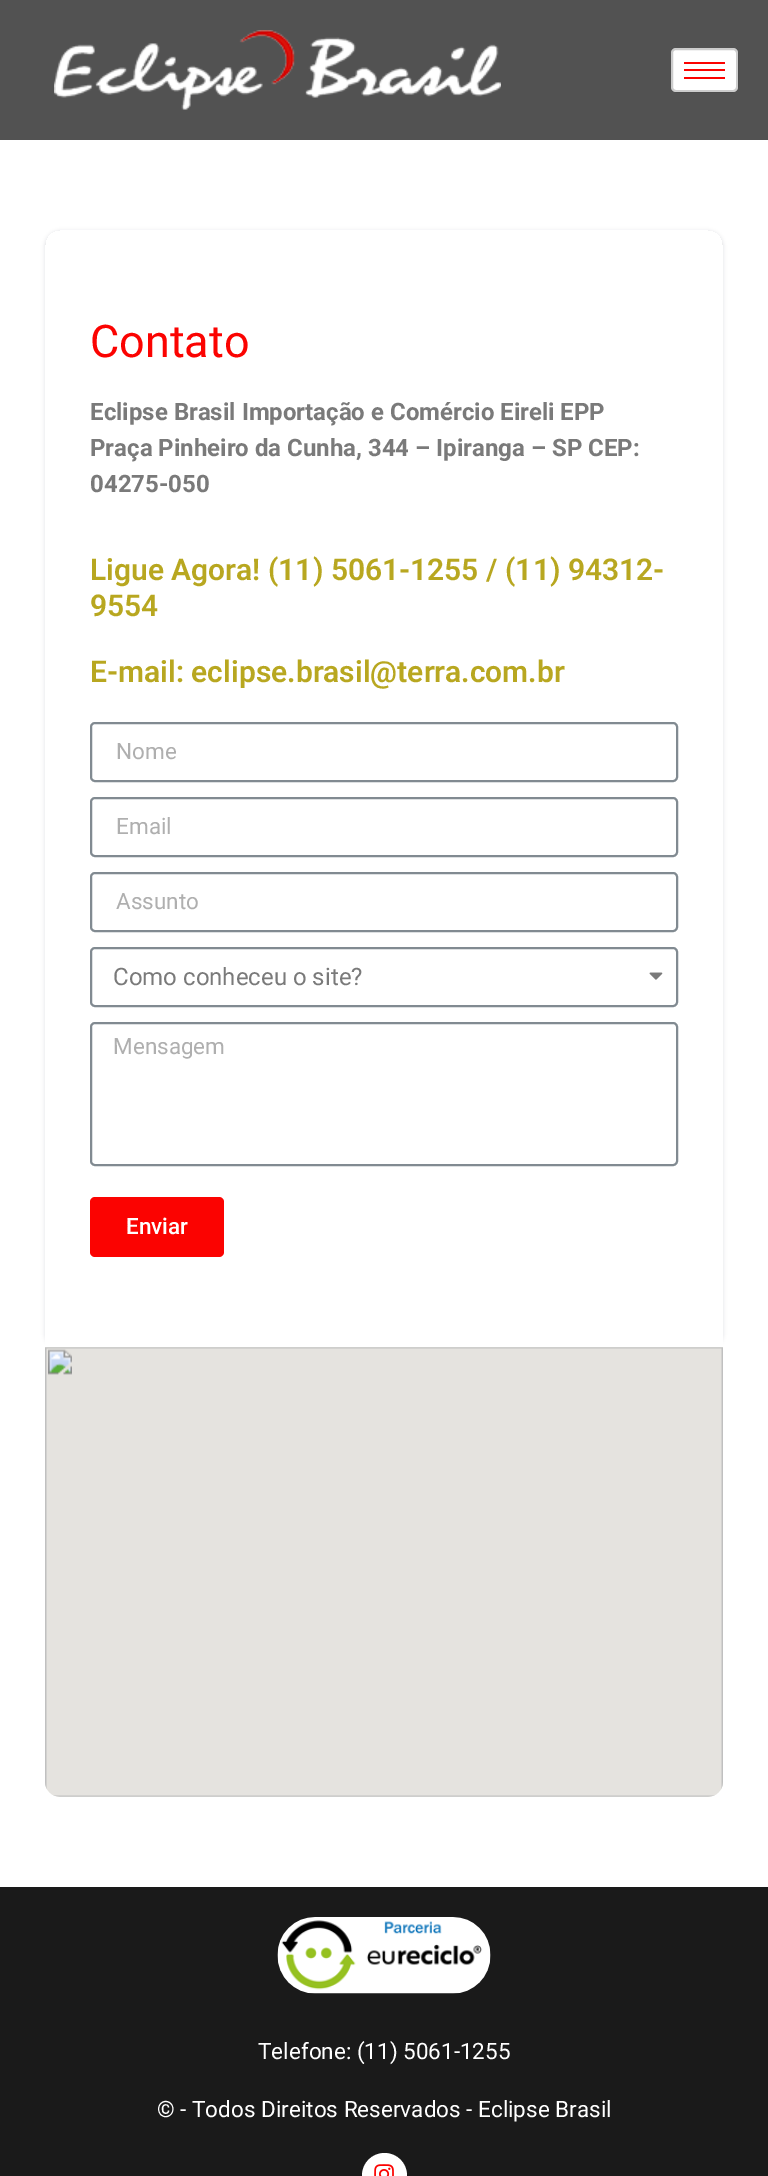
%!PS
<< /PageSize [768 2176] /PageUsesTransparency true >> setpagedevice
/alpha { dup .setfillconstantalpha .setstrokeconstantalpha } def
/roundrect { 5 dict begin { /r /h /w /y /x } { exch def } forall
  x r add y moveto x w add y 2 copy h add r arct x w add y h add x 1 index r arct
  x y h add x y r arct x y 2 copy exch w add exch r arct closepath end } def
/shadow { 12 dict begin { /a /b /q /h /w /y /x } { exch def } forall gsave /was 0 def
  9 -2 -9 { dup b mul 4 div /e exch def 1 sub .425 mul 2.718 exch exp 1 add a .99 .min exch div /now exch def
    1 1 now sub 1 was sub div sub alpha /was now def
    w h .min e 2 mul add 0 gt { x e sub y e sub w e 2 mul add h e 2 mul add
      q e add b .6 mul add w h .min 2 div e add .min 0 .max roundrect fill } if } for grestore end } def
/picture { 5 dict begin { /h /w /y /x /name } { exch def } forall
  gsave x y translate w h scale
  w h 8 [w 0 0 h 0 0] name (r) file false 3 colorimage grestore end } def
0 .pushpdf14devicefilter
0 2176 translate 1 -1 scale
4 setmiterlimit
1 setgray
0 0 768 2176 rectfill
0.322 setgray
0 0 768 140 rectfill
(img1.rgb) 54 30 447 80 picture
1 setgray
671 48 67 44 5 roundrect fill
0.2 alpha
0 setgray
2 setlinewidth
672 49 65 42 4 roundrect stroke
1 alpha
0.984 0.012 0.004 setrgbcolor
684 62 41 2 rectfill
684 69 41 2 rectfill
684 77 41 2 rectfill
gsave
newpath 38 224 moveto 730 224 lineto 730 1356 lineto 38 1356 lineto closepath 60 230 moveto 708 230 lineto 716.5 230 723 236.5 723 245 curveto 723 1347 lineto 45 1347 lineto 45 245 lineto 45 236.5 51.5 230 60 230 curveto closepath eoclip newpath
0.086 0.11 0.176 setrgbcolor
45 231 678 1118 15 2 0.14 shadow
grestore
/Roboto-Regular [45 0 0 -45 0 0] selectfont
90 357 moveto (Contato) show
/Roboto-Bold [24 0 0 -24 0 0] selectfont
0.478 setgray
90 420 moveto (Eclipse Brasil Importação e Comércio Eireli EPP) show
90 456 moveto (Praça Pinheiro da Cunha, 344 – Ipiranga – SP CEP:) show
90 492 moveto (04275-050) show
/Roboto-SemiBold [30 0 0 -30 0 0] selectfont
0.722 0.655 0.125 setrgbcolor
90 580 moveto (Ligue Agora! \(11\) 5061-1255 / \(11\) 94312-) show
90 616 moveto (9554) show
90 682 moveto (E-mail: eclipse.brasil@terra.com.br) show
0.506 0.541 0.569 setrgbcolor
91 723 586 58 4 roundrect stroke
/Roboto-Regular [22.5 0 0 -22.5 0 0] selectfont
0.686 setgray
116 759 moveto (Nome) show
0.506 0.541 0.569 setrgbcolor
91 798 586 58 4 roundrect stroke
0.686 setgray
116 834 moveto (Email) show
0.506 0.541 0.569 setrgbcolor
91 873 586 58 4 roundrect stroke
0.686 setgray
116 909 moveto (Assunto) show
0.506 0.541 0.569 setrgbcolor
91 948 586 58 4 roundrect stroke
/Roboto-Regular [24 0 0 -24 0 0] selectfont
0.478 setgray
113 985 moveto (Como conheceu o site?) show
(img2.rgb) 649 972 14 8 picture
0.506 0.541 0.569 setrgbcolor
91 1023 586 142 4 roundrect stroke
/Roboto-Regular [22.5 0 0 -22.5 0 0] selectfont
0.686 setgray
113 1054 moveto (Mensagem) show
0.984 0.012 0.004 setrgbcolor
90 1197 134 60 5 roundrect fill
/Roboto-Medium [22.5 0 0 -22.5 0 0] selectfont
1 setgray
126 1234 moveto (Enviar) show
(img3.rgb) 45 1347 678 450 picture
0.102 setgray
0 1887 768 289 rectfill
(img4.rgb) 277 1917 214 77 picture
/Roboto-Regular [22.5 0 0 -22.5 0 0] selectfont
1 setgray
258 2059 moveto (Telefone: \(11\) 5061-1255) show
157 2117 moveto (© - Todos Direitos Reservados - Eclipse Brasil) show
newpath 384.5 2175.5 22.5 0 360 arc closepath fill
(img5.rgb) 374 2164 20 12 picture
.poppdf14devicefilter showpage
